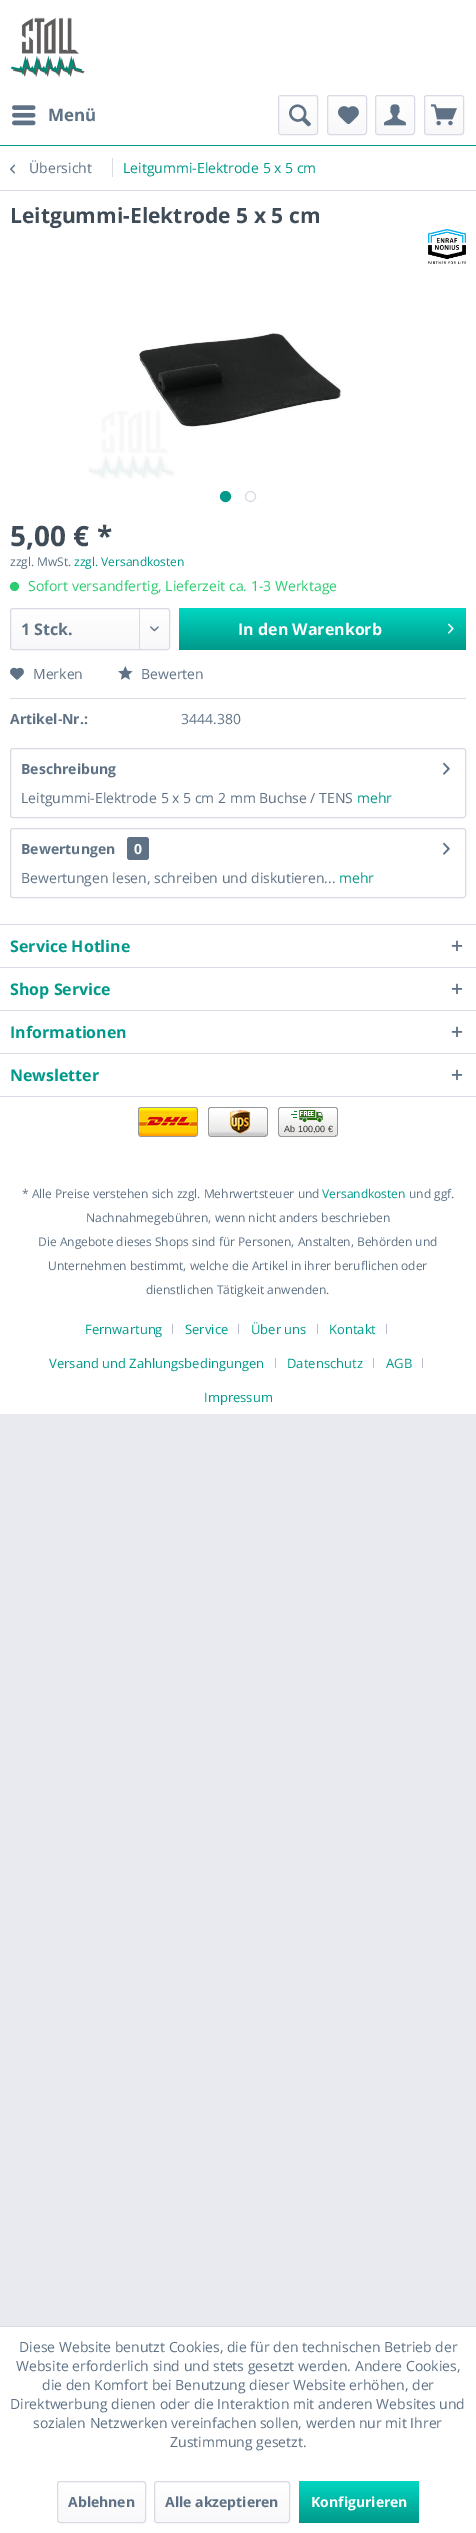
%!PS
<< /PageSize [476 2533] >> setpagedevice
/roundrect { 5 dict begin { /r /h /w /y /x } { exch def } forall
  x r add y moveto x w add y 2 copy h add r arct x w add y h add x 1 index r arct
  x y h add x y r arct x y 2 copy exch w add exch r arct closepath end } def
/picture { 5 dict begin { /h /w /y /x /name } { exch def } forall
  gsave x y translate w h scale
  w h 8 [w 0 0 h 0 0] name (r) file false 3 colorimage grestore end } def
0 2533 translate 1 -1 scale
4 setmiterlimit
0.914 0.914 0.941 setrgbcolor
0 0 476 2533 rectfill
1 setgray
0 0 476 145 rectfill
0 0.6 0.541 setrgbcolor
0 145 476 1 rectfill
(img1.rgb) 10 17 75 61 picture
(img2.rgb) 12 105 24 21 picture
/OpenSans-Bold [17 0 0 -17 0 0] selectfont
0.373 0.447 0.522 setrgbcolor
48 121 moveto (Menü) show
gsave 279 96 38 38 2 roundrect clip newpath
<< /ShadingType 2 /ColorSpace /DeviceRGB /Coords [298 96 298 134] /Extend [true true] /Function << /FunctionType 2 /Domain [0 1] /C0 [1 1 1] /C1 [0.973 0.973 0.98] /N 1 >> >> shfill grestore
0.855 0.855 0.898 setrgbcolor
278.5 95.5 39 39 2.5 roundrect stroke
(img3.rgb) 289 104 22 23 picture
gsave 328 96 38 38 2 roundrect clip newpath
<< /ShadingType 2 /ColorSpace /DeviceRGB /Coords [347 96 347 134] /Extend [true true] /Function << /FunctionType 2 /Domain [0 1] /C0 [1 1 1] /C1 [0.973 0.973 0.98] /N 1 >> >> shfill grestore
327.5 95.5 39 39 2.5 roundrect stroke
(img4.rgb) 338 106 21 19 picture
gsave 376 96 38 38 2 roundrect clip newpath
<< /ShadingType 2 /ColorSpace /DeviceRGB /Coords [395 96 395 134] /Extend [true true] /Function << /FunctionType 2 /Domain [0 1] /C0 [1 1 1] /C1 [0.973 0.973 0.98] /N 1 >> >> shfill grestore
375.5 95.5 39 39 2.5 roundrect stroke
(img5.rgb) 384 104 22 22 picture
gsave 425 96 38 38 2 roundrect clip newpath
<< /ShadingType 2 /ColorSpace /DeviceRGB /Coords [444 96 444 134] /Extend [true true] /Function << /FunctionType 2 /Domain [0 1] /C0 [1 1 1] /C1 [0.973 0.973 0.98] /N 1 >> >> shfill grestore
424.5 95.5 39 39 2.5 roundrect stroke
(img6.rgb) 431 104 26 22 picture
1 setgray
0 146 476 778 rectfill
0.855 0.855 0.898 setrgbcolor
0 190 476 1 rectfill
(img7.rgb) 10 164 5 10 picture
/OpenSans-Regular [14 0 0 -14 0 0] selectfont
0.373 0.447 0.522 setrgbcolor
29 173 moveto (Übersicht) show
0.855 0.855 0.898 setrgbcolor
112 158 1 19 rectfill
0 0.6 0.541 setrgbcolor
123 173 moveto (Leitgummi-Elektrode 5 x 5 cm) show
/OpenSans-Bold [21 0 0 -21 0 0] selectfont
0.247 0.298 0.345 setrgbcolor
10 223 moveto (Leitgummi-Elektrode 5 x 5 cm) show
(img8.rgb) 428 229 38 35 picture
(img9.rgb) 88 333 253 146 picture
0 0.6 0.541 setrgbcolor
newpath 225.5 496.5 5 0 360 arc closepath gsave fill grestore
stroke
0.855 0.855 0.898 setrgbcolor
newpath 250.5 496.5 5 0 360 arc closepath stroke
/OpenSans-Bold [28 0 0 -28 0 0] selectfont
0.247 0.298 0.345 setrgbcolor
10 546 moveto (5,00 € *) show
/OpenSans-Regular [12 0 0 -12 0 0] selectfont
0.373 0.447 0.522 setrgbcolor
10 566 moveto (zzgl. MwSt.) show
0 0.6 0.541 setrgbcolor
74 566 moveto (zzgl. Versandkosten) show
0.18 0.8 0.443 setrgbcolor
newpath 14.5 586.5 4.5 0 360 arc closepath fill
/OpenSans-Regular [14 0 0 -14 0 0] selectfont
28 591 moveto (Sofort versandfertig, Lieferzeit ca. 1-3 Werktage) show
gsave 11 609 158 40 2 roundrect clip newpath
<< /ShadingType 2 /ColorSpace /DeviceRGB /Coords [90 609 90 649] /Extend [true true] /Function << /FunctionType 2 /Domain [0 1] /C0 [1 1 1] /C1 [0.973 0.973 0.98] /N 1 >> >> shfill grestore
0.855 0.855 0.898 setrgbcolor
10.5 608.5 159 41 2.5 roundrect stroke
/OpenSans-Bold [16 0 0 -16 0 0] selectfont
0.373 0.447 0.522 setrgbcolor
21 635 moveto (1 Stck.) show
0.855 0.855 0.898 setrgbcolor
139 609 1 40 rectfill
(img10.rgb) 150 626 9 6 picture
gsave 179 608 287 42 3 roundrect clip newpath
<< /ShadingType 2 /ColorSpace /DeviceRGB /Coords [323 608 323 650] /Extend [true true] /Function << /FunctionType 2 /Domain [0 1] /C0 [0 0.839 0.757] /C1 [0 0.6 0.541] /N 1 >> >> shfill grestore
1 setgray
238 635 moveto (In den Warenkorb) show
(img11.rgb) 448 623 6 11 picture
0.855 0.855 0.898 setrgbcolor
10 698 456 1 rectfill
(img12.rgb) 10 667 14 13 picture
/OpenSans-Regular [14 0 0 -14 0 0] selectfont
0.373 0.447 0.522 setrgbcolor
33 679 moveto (Merken) show
(img13.rgb) 118 666 15 14 picture
141 679 moveto (Bewerten) show
/OpenSans-Bold [14 0 0 -14 0 0] selectfont
10 724 moveto (Artikel-Nr.:) show
/OpenSans-Regular [14 0 0 -14 0 0] selectfont
181 724 moveto (3444.380) show
0.855 0.855 0.898 setrgbcolor
10.5 748.5 455 69 2.5 roundrect stroke
/OpenSans-Bold [14 0 0 -14 0 0] selectfont
0.373 0.447 0.522 setrgbcolor
21 774 moveto (Beschreibung) show
(img14.rgb) 443 762 7 13 picture
/OpenSans-Regular [14 0 0 -14 0 0] selectfont
21 803 moveto (Leitgummi-Elektrode 5 x 5 cm 2 mm Buchse / TENS) show
0 0.6 0.541 setrgbcolor
357 803 moveto (mehr) show
0.855 0.855 0.898 setrgbcolor
10.5 828.5 455 69 2.5 roundrect stroke
/OpenSans-Bold [14 0 0 -14 0 0] selectfont
0.373 0.447 0.522 setrgbcolor
21 854 moveto (Bewertungen) show
(img14.rgb) 443 842 7 13 picture
127 837 22 23 3 roundrect fill
1 setgray
134 854 moveto (0) show
/OpenSans-Regular [14 0 0 -14 0 0] selectfont
0.373 0.447 0.522 setrgbcolor
21 883 moveto (Bewertungen lesen, schreiben und diskutieren...) show
0 0.6 0.541 setrgbcolor
339 883 moveto (mehr) show
1 setgray
0 925 476 489 rectfill
0.855 0.855 0.898 setrgbcolor
0 924 476 1 rectfill
/OpenSans-Bold [16 0 0 -16 0 0] selectfont
0 0.6 0.541 setrgbcolor
10 952 moveto (Service Hotline) show
(img15.rgb) 451 940 12 12 picture
0.855 0.855 0.898 setrgbcolor
0 967 476 1 rectfill
0 0.6 0.541 setrgbcolor
10 995 moveto (Shop Service) show
(img15.rgb) 451 983 12 12 picture
0.855 0.855 0.898 setrgbcolor
0 1010 476 1 rectfill
0 0.6 0.541 setrgbcolor
10 1038 moveto (Informationen) show
(img15.rgb) 451 1026 12 12 picture
0.855 0.855 0.898 setrgbcolor
0 1053 476 1 rectfill
0 1096 476 1 rectfill
0 0.6 0.541 setrgbcolor
10 1081 moveto (Newsletter) show
(img15.rgb) 451 1069 12 12 picture
(img16.rgb) 138 1107 60 30 picture
(img17.rgb) 208 1107 60 30 picture
(img18.rgb) 278 1107 60 30 picture
/LiberationSans-Regular [9 0 0 -9 0 0] selectfont
0.2 setgray
284 1132 moveto (Ab 100,00 €) show
/OpenSans-Regular [12 0 0 -12 0 0] selectfont
0.373 0.447 0.522 setrgbcolor
22 1198 moveto (* Alle Preise verstehen sich zzgl. Mehrwertsteuer und) show
0 0.6 0.541 setrgbcolor
322 1198 moveto (Versandkosten) show
0.373 0.447 0.522 setrgbcolor
409 1198 moveto (und ggf.) show
86 1222 moveto (Nachnahmegebühren, wenn nicht anders beschrieben) show
38 1246 moveto (Die Angebote dieses Shops sind für Personen, Anstalten, Behörden und) show
48 1270 moveto (Unternehmen bestimmt, welche die Artikel in ihrer beruflichen oder) show
146 1294 moveto (dienstlichen Tätigkeit anwenden.) show
/OpenSans-Regular [13 0 0 -13 0 0] selectfont
0 0.6 0.541 setrgbcolor
85 1334 moveto (Fernwartung) show
0.737 0.737 0.816 setrgbcolor
172 1324 1 10 rectfill
0 0.6 0.541 setrgbcolor
185 1334 moveto (Service) show
0.737 0.737 0.816 setrgbcolor
238 1324 1 10 rectfill
0 0.6 0.541 setrgbcolor
251 1334 moveto (Über uns) show
0.737 0.737 0.816 setrgbcolor
317 1324 1 10 rectfill
0 0.6 0.541 setrgbcolor
329 1334 moveto (Kontakt) show
0.737 0.737 0.816 setrgbcolor
386 1324 1 10 rectfill
0 0.6 0.541 setrgbcolor
49 1368 moveto (Versand und Zahlungsbedingungen) show
0.737 0.737 0.816 setrgbcolor
275 1358 1 10 rectfill
0 0.6 0.541 setrgbcolor
287 1368 moveto (Datenschutz) show
0.737 0.737 0.816 setrgbcolor
373 1358 1 10 rectfill
0 0.6 0.541 setrgbcolor
386 1368 moveto (AGB) show
0.737 0.737 0.816 setrgbcolor
422 1358 1 10 rectfill
0 0.6 0.541 setrgbcolor
204 1402 moveto (Impressum) show
1 setgray
0 2327 476 206 rectfill
0.855 0.855 0.898 setrgbcolor
0 2326 476 1 rectfill
/OpenSans-Regular [14 0 0 -14 0 0] selectfont
0.373 0.447 0.522 setrgbcolor
19 2352 moveto (Diese Website benutzt Cookies, die für den technischen Betrieb der) show
16 2371 moveto (Website erforderlich sind und stets gesetzt werden. Andere Cookies,) show
42 2390 moveto (die den Komfort bei Benutzung dieser Website erhöhen, der) show
10 2409 moveto (Direktwerbung dienen oder die Interaktion mit anderen Websites und) show
33 2428 moveto (sozialen Netzwerken vereinfachen sollen, werden nur mit Ihrer) show
170 2447 moveto (Zustimmung gesetzt.) show
gsave 58 2482 87 40 2 roundrect clip newpath
<< /ShadingType 2 /ColorSpace /DeviceRGB /Coords [102 2482 102 2522] /Extend [true true] /Function << /FunctionType 2 /Domain [0 1] /C0 [1 1 1] /C1 [0.973 0.973 0.98] /N 1 >> >> shfill grestore
0.855 0.855 0.898 setrgbcolor
57.5 2481.5 88 41 2.5 roundrect stroke
/OpenSans-Bold [14 0 0 -14 0 0] selectfont
0.373 0.447 0.522 setrgbcolor
68 2507 moveto (Ablehnen) show
gsave 155 2482 134 40 2 roundrect clip newpath
<< /ShadingType 2 /ColorSpace /DeviceRGB /Coords [222 2482 222 2522] /Extend [true true] /Function << /FunctionType 2 /Domain [0 1] /C0 [1 1 1] /C1 [0.973 0.973 0.98] /N 1 >> >> shfill grestore
0.855 0.855 0.898 setrgbcolor
154.5 2481.5 135 41 2.5 roundrect stroke
0.373 0.447 0.522 setrgbcolor
165 2507 moveto (Alle akzeptieren) show
gsave 299 2481 120 42 3 roundrect clip newpath
<< /ShadingType 2 /ColorSpace /DeviceRGB /Coords [359 2481 359 2523] /Extend [true true] /Function << /FunctionType 2 /Domain [0 1] /C0 [0 0.839 0.757] /C1 [0 0.6 0.541] /N 1 >> >> shfill grestore
1 setgray
311 2507 moveto (Konfigurieren) show
showpage
